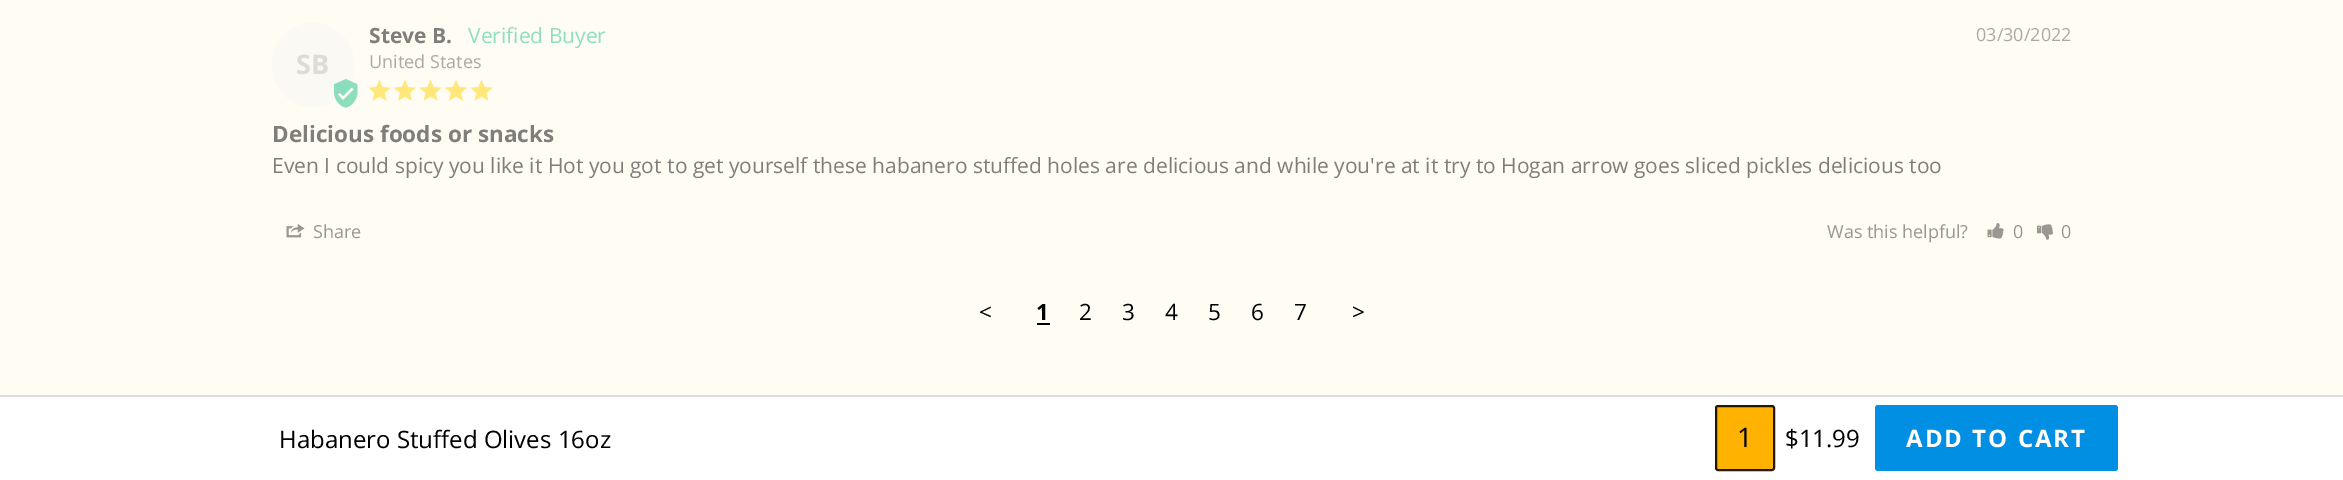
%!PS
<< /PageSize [2343 480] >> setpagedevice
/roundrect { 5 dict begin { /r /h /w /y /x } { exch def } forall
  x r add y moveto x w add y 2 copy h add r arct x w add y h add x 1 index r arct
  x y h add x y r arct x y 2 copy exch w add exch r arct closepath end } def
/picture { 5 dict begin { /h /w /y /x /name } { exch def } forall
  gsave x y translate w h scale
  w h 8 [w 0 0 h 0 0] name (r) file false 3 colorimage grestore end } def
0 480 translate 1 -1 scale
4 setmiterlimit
1 0.988 0.953 setrgbcolor
0 0 2343 480 rectfill
/OpenSans-Bold [21 0 0 -21 0 0] selectfont
0.502 0.494 0.478 setrgbcolor
369 43 moveto (Steve B.) show
/OpenSans-Regular [21 0 0 -21 0 0] selectfont
0.557 0.875 0.741 setrgbcolor
468 43 moveto (Verified Buyer) show
/OpenSans-Regular [18 0 0 -18 0 0] selectfont
0.667 0.663 0.643 setrgbcolor
1976 41 moveto (03/30/2022) show
0.98 0.976 0.957 setrgbcolor
272 23 82 84 41 roundrect fill
/OpenSans-Bold [27 0 0 -27 0 0] selectfont
0.867 0.863 0.843 setrgbcolor
296 74 moveto (SB) show
(img1.rgb) 333 79 25 29 picture
/OpenSans-Regular [18 0 0 -18 0 0] selectfont
0.667 0.663 0.643 setrgbcolor
369 68 moveto (United States) show
(img2.rgb) 368 79 23 22 picture
(img3.rgb) 394 79 22 22 picture
(img2.rgb) 419 79 23 22 picture
(img3.rgb) 445 79 22 22 picture
(img2.rgb) 470 79 23 22 picture
/OpenSans-Bold [22.5 0 0 -22.5 0 0] selectfont
0.502 0.494 0.478 setrgbcolor
272 142 moveto (Delicious foods or snacks) show
/OpenSans-Regular [21 0 0 -21 0 0] selectfont
272 173 moveto (Even I could spicy you like it Hot you got to get yourself these habanero stuffed holes are delicious and while you're at it try to Hogan arrow goes sliced pickles delicious too) show
(img4.rgb) 286 224 19 14 picture
/OpenSans-Regular [18 0 0 -18 0 0] selectfont
0.6 0.592 0.573 setrgbcolor
313 238 moveto (Share) show
1827 238 moveto (Was this helpful?) show
(img5.rgb) 1987 223 17 16 picture
2013 238 moveto (0) show
(img6.rgb) 2037 224 16 16 picture
2061 238 moveto (0) show
/OpenSans-Regular [22.5 0 0 -22.5 0 0] selectfont
0 setgray
979 320 moveto (<) show
/OpenSans-Bold [22.5 0 0 -22.5 0 0] selectfont
1036 320 moveto (1) show
1037 323 13 2 rectfill
/OpenSans-Regular [22.5 0 0 -22.5 0 0] selectfont
1079 320 moveto (2) show
1122 320 moveto (3) show
1165 320 moveto (4) show
1208 320 moveto (5) show
1251 320 moveto (6) show
1294 320 moveto (7) show
1352 320 moveto (>) show
1 setgray
0 397 2343 83 rectfill
0.867 setgray
0 395 2343 2 rectfill
/OpenSans-Regular [24 0 0 -24 0 0] selectfont
0 setgray
279 448 moveto (Habanero Stuffed Olives 16oz) show
1 0.702 0 setrgbcolor
1716 406 58 64 2 roundrect gsave fill grestore
0.137 0.09 0 setrgbcolor
2 setlinewidth
stroke
/OpenSans-Regular [27 0 0 -27 0 0] selectfont
0 setgray
1737 447 moveto (1) show
/OpenSans-Regular [24 0 0 -24 0 0] selectfont
1785 447 moveto ($11.99) show
0 0.561 0.89 setrgbcolor
1875 405 243 66 3 roundrect fill
/OpenSans-Bold [24 0 0 -24 0 0] selectfont
1 setgray
1906 447 moveto 2 0 (ADD TO CART) ashow
showpage
